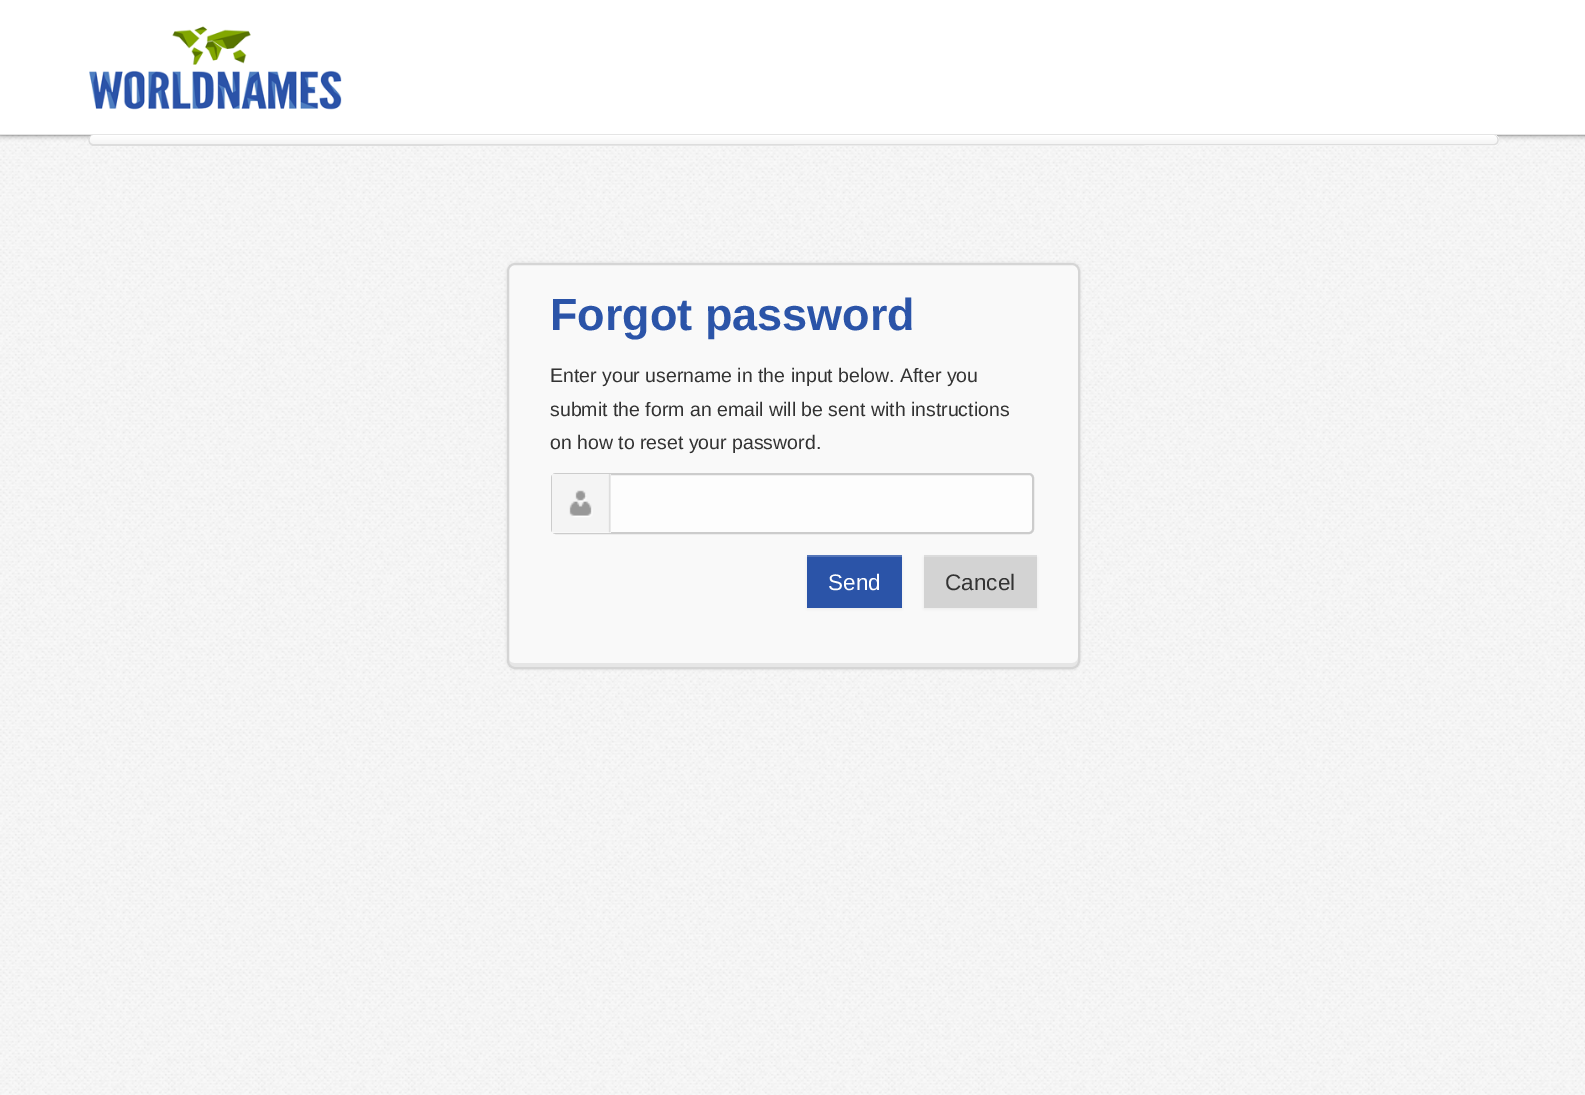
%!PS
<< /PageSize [1585 1095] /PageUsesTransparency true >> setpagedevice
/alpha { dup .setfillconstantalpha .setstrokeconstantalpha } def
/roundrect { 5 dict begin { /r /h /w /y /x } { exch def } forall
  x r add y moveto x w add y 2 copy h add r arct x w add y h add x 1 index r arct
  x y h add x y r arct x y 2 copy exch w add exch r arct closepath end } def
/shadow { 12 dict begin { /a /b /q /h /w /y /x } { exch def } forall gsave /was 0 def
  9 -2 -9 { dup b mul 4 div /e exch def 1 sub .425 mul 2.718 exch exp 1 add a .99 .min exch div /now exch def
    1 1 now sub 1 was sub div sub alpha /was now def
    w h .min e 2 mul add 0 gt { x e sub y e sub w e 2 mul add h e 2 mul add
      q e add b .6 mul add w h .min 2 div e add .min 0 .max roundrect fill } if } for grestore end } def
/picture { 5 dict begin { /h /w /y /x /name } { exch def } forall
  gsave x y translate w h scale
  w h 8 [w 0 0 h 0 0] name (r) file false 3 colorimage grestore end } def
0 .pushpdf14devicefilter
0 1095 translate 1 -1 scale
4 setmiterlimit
1 setgray
0 0 1585 1095 rectfill
(img1.rgb) 0 135 1585 960 picture
0 setgray
0 2 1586 135 0 2 0.25 shadow
1 setgray
0 0 1585 135 rectfill
0.1 alpha
0 setgray
0 134 1585 2 rectfill
1 alpha
(img2.rgb) 89 26 253 84 picture
0.984 setgray
89 135 1410 11 5 roundrect fill
gsave
89 135 1410 11 5 roundrect clip newpath
gsave newpath 94 135 moveto 1494 135 lineto 1497 135 1499 137 1499 140 curveto 1499 144 lineto 89 144 lineto 89 140 lineto 89 137 91 135 94 135 curveto closepath clip newpath
<< /ShadingType 2 /ColorSpace /DeviceRGB /Coords [794 135 794 144] /Extend [true true] /Function << /FunctionType 2 /Domain [0 1] /C0 [1 1 1] /C1 [0.961 0.961 0.961] /N 1 >> >> shfill grestore
grestore
1 setgray
newpath 93 136 moveto 1494 136 lineto 1495 136 1496 138 1497 139 curveto 1497 137 1496 135 1494 135 curveto 93 135 lineto 92 135 90 136 90 138 curveto 91 137 92 136 93 136 curveto closepath fill
0.867 setgray
newpath 93 135 moveto 1494 135 lineto 1500 135 1500 144 1495 145 curveto 93 146 lineto 87 145 87 135 93 135 curveto closepath 93 135 moveto 1494 135 lineto 1498 135 1499 144 1494 144 curveto 93 144 lineto 88 144 89 135 93 135 curveto closepath eofill
0.855 setgray
507 263 573 406 8 1.5 1 shadow
0.976 setgray
507 263 573 406 8 roundrect fill
0.902 setgray
newpath 509 660 moveto 509 662 lineto 509 665 512 668 515 668 curveto 1073 668 lineto 1076 668 1079 665 1079 662 curveto 1079 270 lineto 1079 269 1079 268 1078 267 curveto 1078 657 lineto 1078 660 1076 663 1072 663 curveto 514 663 lineto 512 663 510 662 509 660 curveto closepath fill
0.835 setgray
2 setlinewidth
508 264 571 404 7 roundrect stroke
/LiberationSans-Bold [45 0 0 -45 0 0] selectfont
0.169 0.329 0.659 setrgbcolor
550 330 moveto (Forgot password) show
/LiberationSans-Regular [19.5 0 0 -19.5 0 0] selectfont
0.2 setgray
550 382 moveto (Enter your username in the input below. After you) show
550 416 moveto (submit the form an email will be sent with instructions) show
550 449 moveto (on how to reset your password.) show
0.992 setgray
552 474 481 59 4 roundrect gsave fill grestore
0.8 setgray
stroke
0.992 setgray
552 474 59 59 rectfill
(img3.rgb) 552 474 59 59 picture
0 setgray
807 557 95 52 0 1.5 0.05 shadow
0.169 0.329 0.659 setrgbcolor
807 557 95 51 rectfill
0.333 0.463 0.725 setrgbcolor
807 555 95 2 rectfill
/LiberationSans-Regular [22.5 0 0 -22.5 0 0] selectfont
1 setgray
828 590 moveto (Send) show
0 setgray
924 557 113 52 0 1.5 0.05 shadow
0.827 setgray
924 557 113 51 rectfill
0.863 setgray
924 555 113 2 rectfill
0.2 setgray
945 590 moveto (Cancel) show
.poppdf14devicefilter showpage
